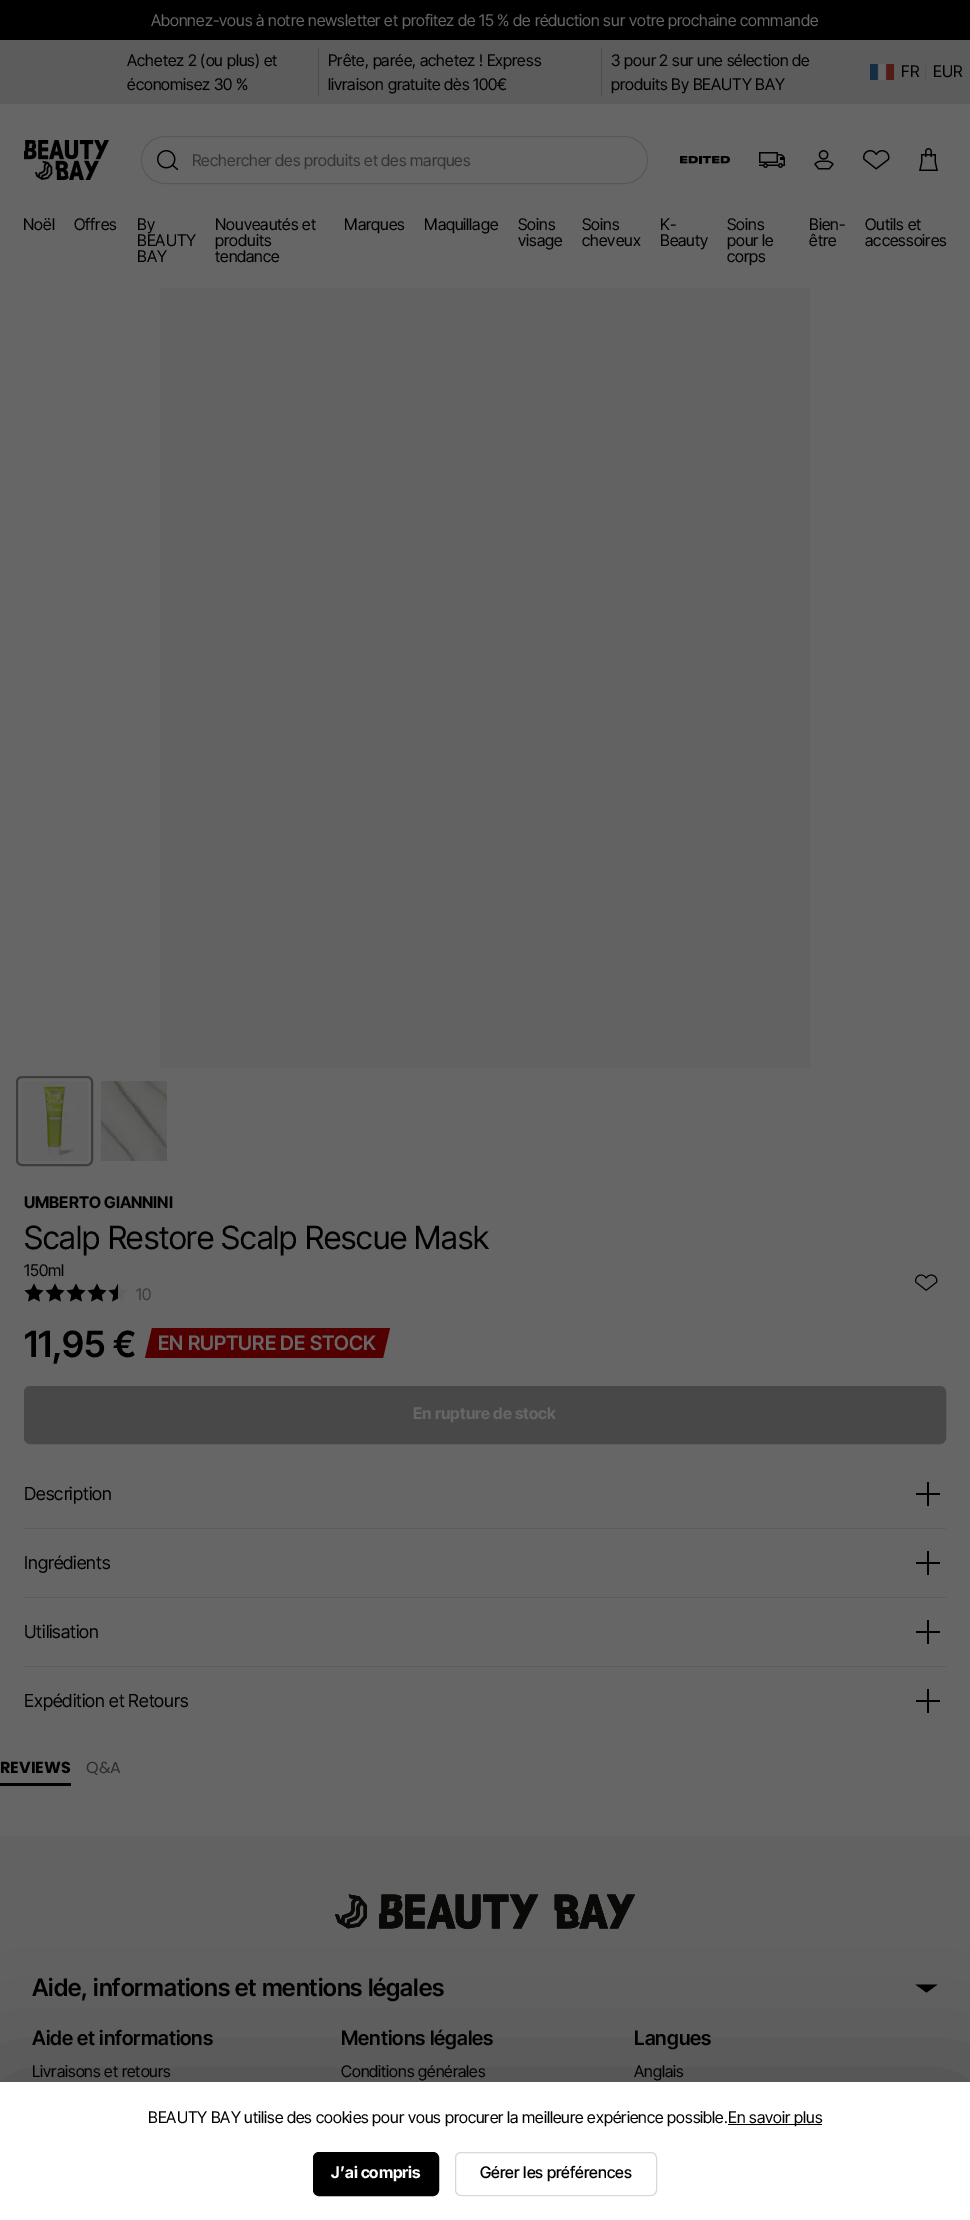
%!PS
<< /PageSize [970 2220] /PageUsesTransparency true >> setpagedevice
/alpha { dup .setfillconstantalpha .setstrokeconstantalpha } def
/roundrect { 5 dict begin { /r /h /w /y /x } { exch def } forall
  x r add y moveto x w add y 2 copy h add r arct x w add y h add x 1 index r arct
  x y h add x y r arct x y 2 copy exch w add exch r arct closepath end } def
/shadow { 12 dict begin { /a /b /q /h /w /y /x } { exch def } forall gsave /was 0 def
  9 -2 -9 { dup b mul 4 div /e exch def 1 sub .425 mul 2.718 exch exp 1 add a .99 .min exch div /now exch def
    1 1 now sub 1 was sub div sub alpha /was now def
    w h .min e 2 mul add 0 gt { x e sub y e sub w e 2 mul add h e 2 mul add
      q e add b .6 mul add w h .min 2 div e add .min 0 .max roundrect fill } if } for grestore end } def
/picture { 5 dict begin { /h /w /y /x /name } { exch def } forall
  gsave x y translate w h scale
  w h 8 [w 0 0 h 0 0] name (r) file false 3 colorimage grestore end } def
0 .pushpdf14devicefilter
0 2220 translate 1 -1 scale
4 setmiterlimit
0.4 setgray
0 0 970 2220 rectfill
0 setgray
0 0 970 40 rectfill
/InterTight-Regular [16 0 0 -16 0 0] selectfont
0.4 setgray
151 26 moveto (Abonnez-vous à notre newsletter et profitez de 15 % de réduction sur votre prochaine commande) show
0.361 setgray
0 40 970 64 rectfill
0.298 setgray
318 48 1 48 rectfill
0 setgray
127 66 moveto (Achetez 2 \(ou plus\) et) show
127 90 moveto (économisez 30 %) show
0.298 setgray
601 48 1 48 rectfill
0 setgray
328 66 moveto (Prête, parée, achetez ! Express) show
328 90 moveto (livraison gratuite dès 100€) show
611 66 moveto (3 pour 2 sur une sélection de) show
611 90 moveto (produits By BEAUTY BAY) show
(img1.rgb) 870 64 24 16 picture
901 77 moveto (FR) show
0.325 setgray
925 65 1 15 rectfill
0 setgray
933 77 moveto (EUR) show
(img2.rgb) 24 140 85 40 picture
(img3.rgb) 157 150 22 21 picture
0.341 setgray
141.5 136.5 506 47 23.5 roundrect stroke
0.2 setgray
192 166 moveto (Rechercher des produits et des marques) show
(img4.rgb) 680 156 50 8 picture
(img5.rgb) 759 152 26 16 picture
(img6.rgb) 814 150 20 20 picture
(img7.rgb) 863 150 27 20 picture
(img8.rgb) 919 148 19 23 picture
0 setgray
23 230 moveto (Noël) show
74 230 moveto (Offres) show
137 230 moveto (By) show
137 246 moveto (BEAUTY) show
137 262 moveto (BAY) show
215 230 moveto (Nouveautés et) show
215 246 moveto (produits) show
215 262 moveto (tendance) show
344 230 moveto (Marques) show
424 230 moveto (Maquillage) show
518 230 moveto (Soins) show
518 246 moveto (visage) show
582 230 moveto (Soins) show
582 246 moveto (cheveux) show
660 230 moveto (K-) show
660 246 moveto (Beauty) show
727 230 moveto (Soins) show
727 246 moveto (pour le) show
727 262 moveto (corps) show
809 230 moveto (Bien-) show
809 246 moveto (être) show
865 230 moveto (Outils et) show
865 246 moveto (accessoires) show
0.384 setgray
160 288 650 780 rectfill
0.239 setgray
2 setlinewidth
17 1077 75 88 5 roundrect stroke
(img9.rgb) 21 1081 67 80 picture
(img10.rgb) 101 1081 66 80 picture
/InterTight-Bold [16 0 0 -16 0 0] selectfont
0 setgray
24 1208 moveto (UMBERTO GIANNINI) show
/InterTight-Regular [32 0 0 -32 0 0] selectfont
24 1249 moveto (Scalp Restore Scalp Rescue Mask) show
/InterTight-Regular [16 0 0 -16 0 0] selectfont
24 1276 moveto (150ml) show
(img12.rgb) 25 1284 102 18 picture
(img11.rgb) 24 1283 94 19 picture
0.224 setgray
136 1300 moveto (10) show
(img13.rgb) 915 1274 23 17 picture
/InterTight-SemiBold [36 0 0 -36 0 0] selectfont
0 setgray
24 1357 moveto (11,95 €) show
0.314 0 0 setrgbcolor
newpath 152 1328 moveto 390 1328 lineto 383 1358 lineto 145 1358 lineto closepath fill
/InterTight-SemiBold [20 0 0 -20 0 0] selectfont
0.4 setgray
158 1350 moveto (EN RUPTURE DE STOCK) show
0.282 setgray
25 1387 920 56 5 roundrect gsave fill grestore
stroke
/InterTight-Bold [16 0 0 -16 0 0] selectfont
0.4 setgray
413 1419 moveto (En rupture de stock) show
0.361 setgray
24 1528 922 1 rectfill
/InterTight-Regular [18 0 0 -18 0 0] selectfont
0 setgray
24 1500 moveto (Description) show
(img14.rgb) 916 1482 24 24 picture
0.361 setgray
24 1597 922 1 rectfill
0 setgray
24 1569 moveto (Ingrédients) show
(img14.rgb) 916 1551 24 24 picture
24 1638 moveto (Utilisation) show
(img14.rgb) 916 1620 24 24 picture
0.361 setgray
24 1666 922 1 rectfill
0 setgray
24 1707 moveto (Expédition et Retours) show
(img14.rgb) 916 1689 24 24 picture
0 1783 71 3 rectfill
/Poppins-Bold [16 0 0 -16 0 0] selectfont
0 1773 moveto (REVIEWS) show
/Poppins-Regular [16 0 0 -16 0 0] selectfont
0.169 0.173 0.184 setrgbcolor
86 1773 moveto (Q&A) show
0.384 setgray
0 1836 970 246 rectfill
(img15.rgb) 335 1894 300 35 picture
/InterTight-SemiBold [24 0 0 -24 0 0] selectfont
0 setgray
32 1996 moveto (Aide, informations et mentions légales) show
newpath 926.5 1992.5 moveto 937.5 1984.5 lineto 915.5 1984.5 lineto closepath fill
/InterTight-SemiBold [20 0 0 -20 0 0] selectfont
32 2045 moveto (Aide et informations) show
/InterTight-Regular [16 0 0 -16 0 0] selectfont
32 2077 moveto (Livraisons et retours) show
/InterTight-SemiBold [20 0 0 -20 0 0] selectfont
341 2045 moveto (Mentions légales) show
/InterTight-Regular [16 0 0 -16 0 0] selectfont
341 2077 moveto (Conditions générales) show
/InterTight-SemiBold [20 0 0 -20 0 0] selectfont
634 2045 moveto (Langues) show
/InterTight-Regular [16 0 0 -16 0 0] selectfont
634 2077 moveto (Anglais) show
0 2082 970 138 0 60 0.2 shadow
1 setgray
0 2082 970 138 rectfill
0 setgray
148 2123 moveto (BEAUTY BAY utilise des cookies pour vous procurer la meilleure expérience possible.) show
728 2124 94 1 rectfill
728 2123 moveto (En savoir plus) show
314 2153 124 42 5 roundrect gsave fill grestore
stroke
/InterTight-Bold [16 0 0 -16 0 0] selectfont
1 setgray
331 2178 moveto (J’ai compris) show
0.847 setgray
1 setlinewidth
455.5 2152.5 201 43 5.5 roundrect stroke
/InterTight-Medium [16 0 0 -16 0 0] selectfont
0 setgray
480 2178 moveto (Gérer les préférences) show
.poppdf14devicefilter showpage
